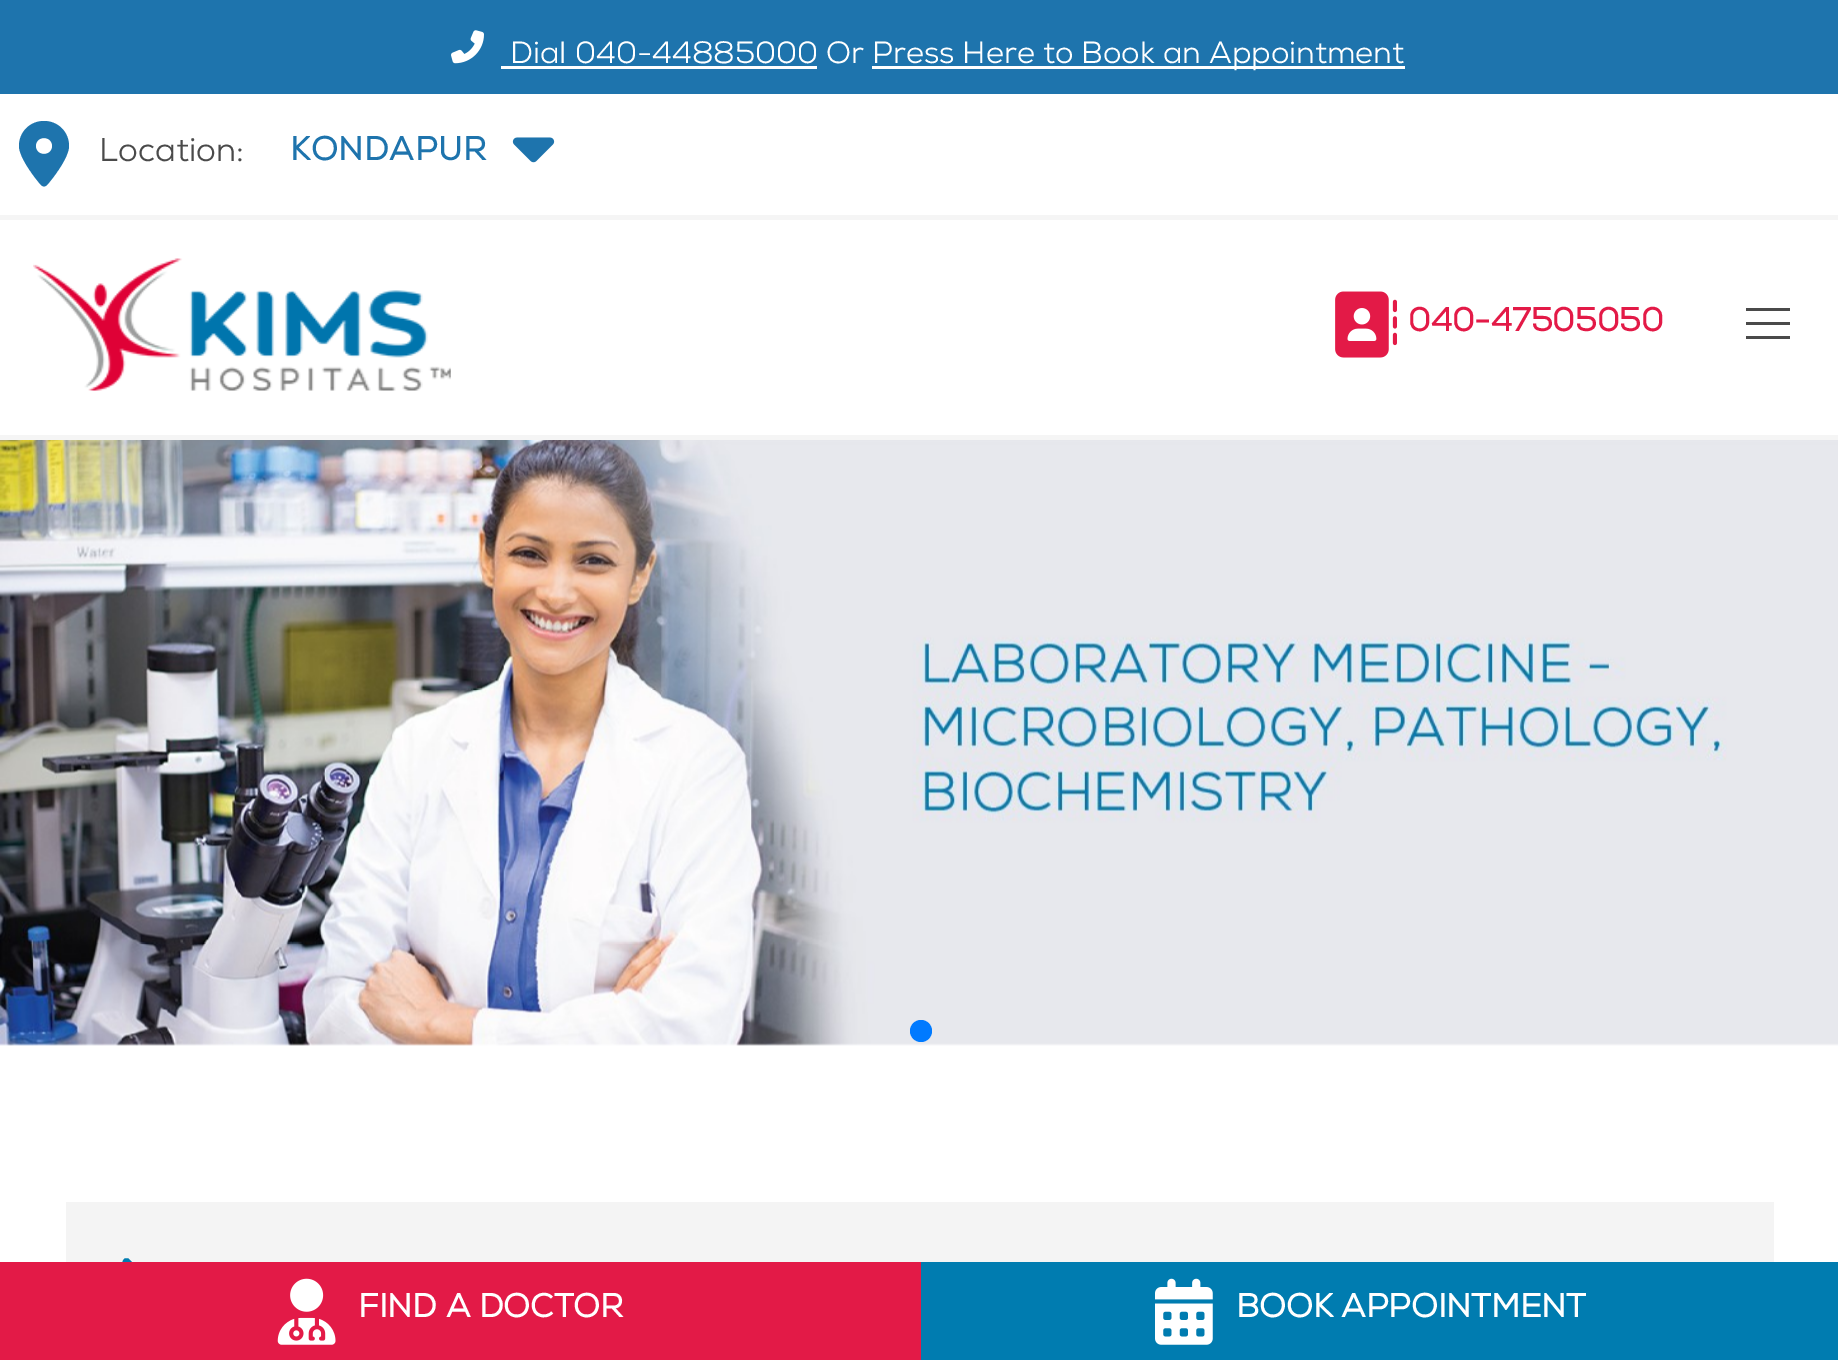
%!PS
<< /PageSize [1838 1360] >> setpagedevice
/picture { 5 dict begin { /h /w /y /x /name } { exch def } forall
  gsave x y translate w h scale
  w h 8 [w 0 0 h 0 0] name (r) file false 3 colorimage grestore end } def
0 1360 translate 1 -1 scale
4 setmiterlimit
1 setgray
0 0 1838 1360 rectfill
0.118 0.455 0.678 setrgbcolor
0 0 1838 94 rectfill
(img1.rgb) 451 30 33 34 picture
/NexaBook-Regular [30.75 0 0 -30.75 0 0] selectfont
1 setgray
510 63 moveto (Dial 040-44885000 Or) show
501 66 316 3 rectfill
872 66 533 3 rectfill
872 63 moveto (Press Here to Book an Appointment) show
0.961 setgray
newpath 0 214 moveto 0 220 lineto 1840 220 lineto 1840 99 lineto 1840 214 lineto closepath fill
1 setgray
0 214 1838 1 rectfill
0.118 0.455 0.678 setrgbcolor
newpath 47 185 moveto 54 177 69 157 69 146 curveto 69 132 58 121 44 121 curveto 30 121 19 132 19 146 curveto 19 157 34 177 41 185 curveto 43 187 45 187 47 185 curveto closepath 44 138 moveto 55 138 55 154 44 154 curveto 33 154 33 138 44 138 curveto closepath fill
/NexaBook-Regular [33 0 0 -33 0 0] selectfont
0.29 setgray
99 161 moveto (Location:) show
/NexaBook-Bold [33 0 0 -33 0 0] selectfont
0.118 0.455 0.678 setrgbcolor
290 160 moveto 0.75 0 (KONDAPUR) ashow
(img2.rgb) 512 137 43 26 picture
0.961 setgray
newpath 0 434 moveto 0 440 lineto 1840 440 lineto 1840 220 lineto 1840 434 lineto closepath fill
1 setgray
0 434 1838 1 rectfill
(img3.rgb) 33 258 418 133 picture
(img4.rgb) 1335 291 62 67 picture
0.89 0.102 0.278 setrgbcolor
1408 331 moveto (040-47505050) show
0.29 setgray
1746 308 44 3 rectfill
1746 322 44 3 rectfill
1746 336 44 3 rectfill
(img5.rgb) 0 440 1838 606 picture
0 0.478 1 setrgbcolor
newpath 921 1031 11 0 360 arc closepath fill
0.957 setgray
66 1202 1708 60 rectfill
0 0.486 0.69 setrgbcolor
newpath 154 1284 moveto 156 1286 156 1288 154 1290 curveto 129 1315 lineto 128 1316 125 1316 124 1315 curveto 122 1313 122 1310 124 1309 curveto 145 1287 lineto 124 1265 lineto 122 1264 122 1261 124 1259 curveto 125 1258 128 1258 129 1259 curveto closepath fill
0.89 0.102 0.278 setrgbcolor
0 1262 921 98 rectfill
(img6.rgb) 277 1278 59 67 picture
1 setgray
358 1317 moveto (FIND A DOCTOR) show
0 0.486 0.69 setrgbcolor
921 1262 917 98 rectfill
(img7.rgb) 1155 1278 58 67 picture
1 setgray
1236 1317 moveto (BOOK APPOINTMENT) show
showpage
